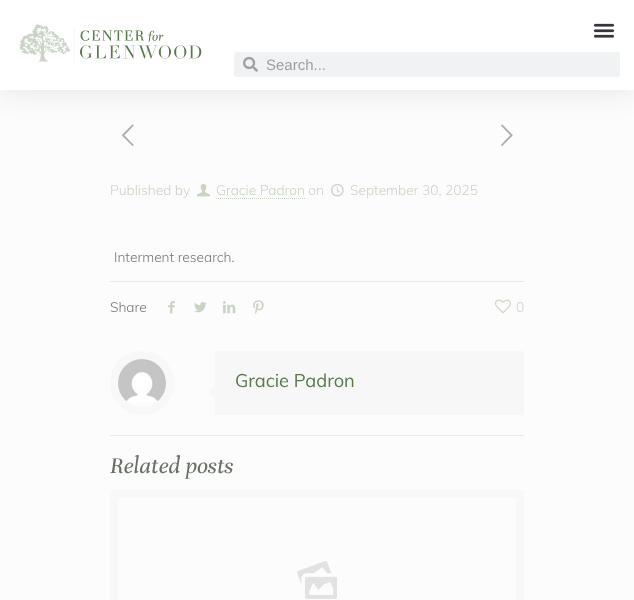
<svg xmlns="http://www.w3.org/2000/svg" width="634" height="600">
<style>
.a{font:15px Liberation Sans;fill:#a0a0a1}
.b{font:300 13.75px Muli;fill:#cad4c5}
.c{font:300 13.75px Muli;fill:#777}
.d{font:18.25px Muli;fill:#59784d}
.e{font:italic 24.5px Unna;fill:#687065}
</style>
<rect width="100%" height="100%" fill="#fcfcfc"/>
<image href="4.png" x="122" y="124" width="12" height="22"/>
<image href="5.png" x="501" y="124" width="12" height="22"/>
<path fill="#0000001a" filter="blur(15px)" d="M0 0h634v90H0z"/>
<path fill="#fff" d="M0 0h634v90H0z"/>
<image href="1.png" x="19" y="24" width="183" height="39"/>
<image href="2.png" x="593" y="23" width="22" height="15"/>
<rect fill="#f1f2f3" x="234" y="52" width="386" height="25" rx="3"/>
<image href="3.png" x="243" y="56" width="15" height="16"/>
<image href="6.png" x="197" y="184" width="13" height="13"/>
<path fill="none" stroke="#cad4c5" stroke-dasharray="1 1" d="M216 198.5h89"/>
<image href="7.png" x="331" y="183" width="13" height="14"/>
<path fill="#e8e8e8" d="M110 281h414v1H110z"/>
<image href="8.png" x="168" y="301" width="7" height="13"/>
<image href="9.png" x="194" y="302" width="13" height="11"/>
<image href="10.png" x="223" y="301" width="13" height="13"/>
<image href="11.png" x="253" y="300" width="11" height="14"/>
<image href="12.png" x="495" y="299" width="16" height="15"/>
<circle fill="none" stroke="#f8f8f8" stroke-width="8" cx="142" cy="383" r="28"/>
<image href="13.png" x="118" y="359" width="48" height="43"/>
<path fill="#f7f7f7" d="M215 351h309v64H215z"/>
<path fill="#f7f7f7" d="M215 386v12l-6-6z"/>
<path fill="#e8e8e8" d="M110 435h414v1H110z"/>
<path fill="none" stroke="#f8f8f8" stroke-width="8" d="M114 494h406v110H114z"/>
<image href="14.png" x="297" y="561" width="40" height="38"/>
<text class="a" x="266" y="70">Search...</text>
<text class="b" x="110" y="195">Published by</text>
<text class="b" x="216" y="195">Gracie Padron on</text>
<text class="b" x="350" y="195">September 30, 2025</text>
<text class="c" x="114" y="262">Interment research.</text>
<text class="c" x="110" y="312">Share</text>
<text class="b" x="516" y="312">0</text>
<text class="d" x="235" y="387">Gracie Padron</text>
<text class="e" x="110" y="473">Related posts</text>
</svg>
